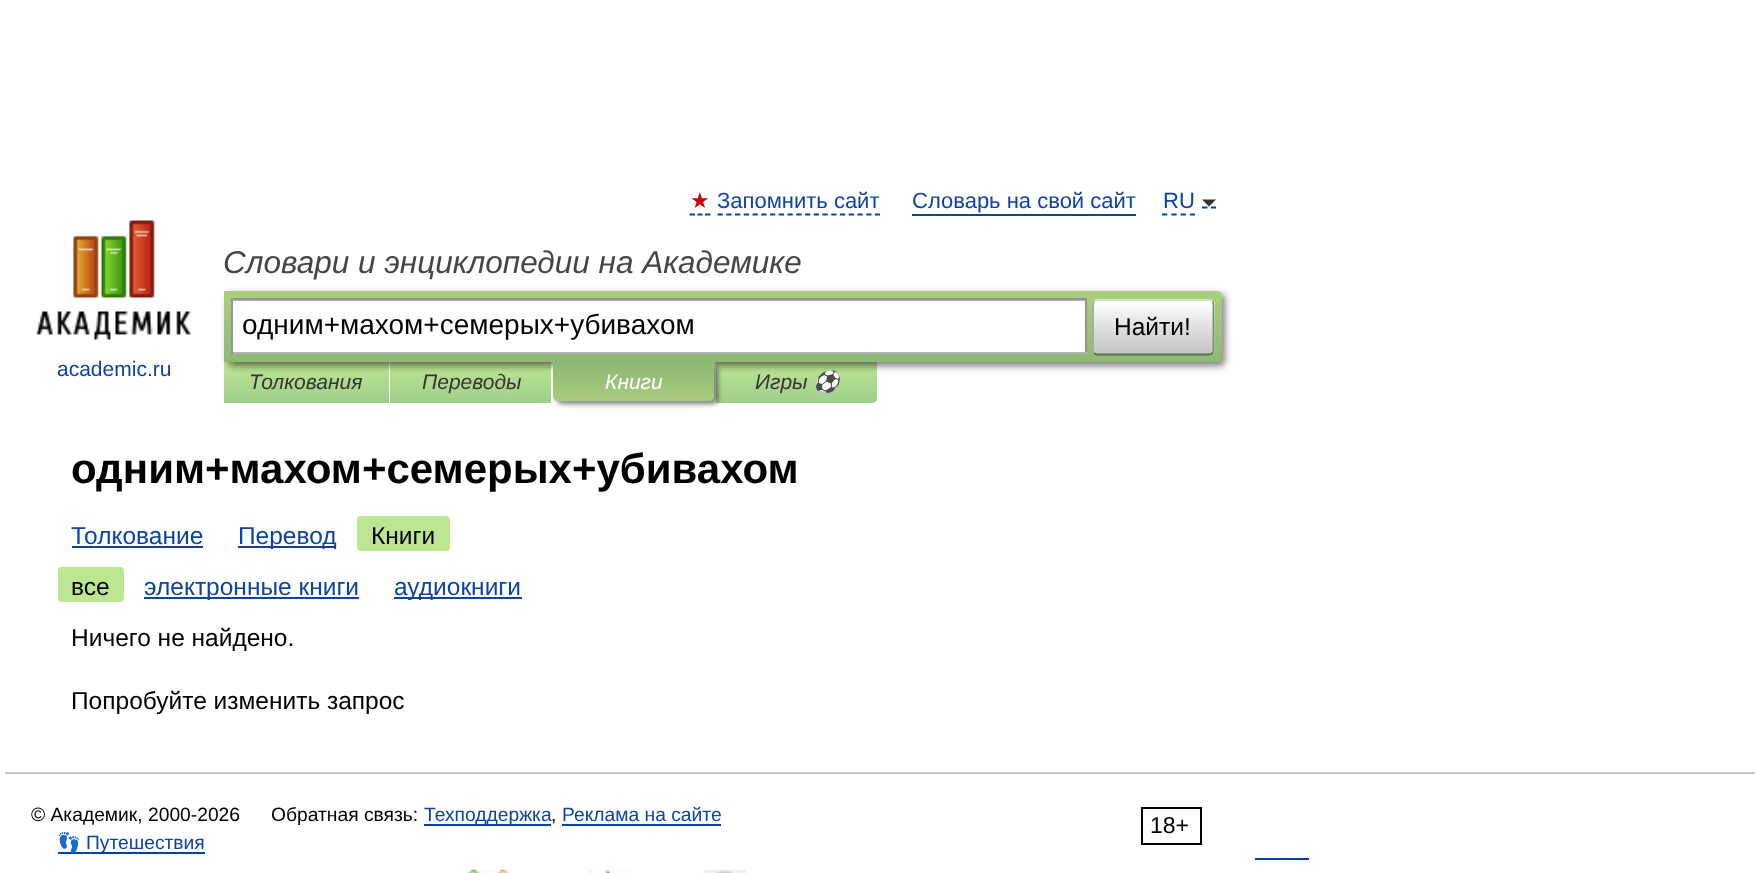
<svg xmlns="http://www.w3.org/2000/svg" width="1758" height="873">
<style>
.a{font:22px DejaVu Sans;fill:#c00}
.b{font:22px Liberation Sans;fill:#0d44a0}
.c{font:italic 31.5px Liberation Sans;fill:#454545}
.d{font:28px Liberation Sans;fill:#000}
.e{font:24.5px Liberation Sans;fill:#000}
.f{font:21px Liberation Sans;fill:#0d44a0}
.g{font:italic 21px Liberation Sans;fill:#353535}
.h{font:italic 21px Liberation Sans;fill:#fff}
.i{font:italic 21px Noto Color Emoji;fill:#353535}
.j{font:bold 42px Liberation Sans;fill:#000}
.k{font:24.5px Liberation Sans;fill:#0d44a0}
.l{font:19.25px Liberation Sans;fill:#000}
.m{font:19.25px Liberation Sans;fill:#0d44a0}
.n{font:23px Liberation Sans;fill:#000}
.o{font:19.25px Noto Color Emoji;fill:#0d44a0}
</style>
<defs>
<linearGradient id="g1" gradientUnits="userSpaceOnUse" x1="306" y1="362" x2="306" y2="403"><stop offset="0" stop-color="#bde693"/><stop offset="1" stop-color="#a0ce8a"/></linearGradient>
<linearGradient id="g2" gradientUnits="userSpaceOnUse" x1="471" y1="362" x2="471" y2="403"><stop offset="0" stop-color="#bde693"/><stop offset="1" stop-color="#a0ce8a"/></linearGradient>
<linearGradient id="g3" gradientUnits="userSpaceOnUse" x1="796" y1="362" x2="796" y2="403"><stop offset="0" stop-color="#bde693"/><stop offset="1" stop-color="#a0ce8a"/></linearGradient>
<linearGradient id="g4" gradientUnits="userSpaceOnUse" x1="723" y1="290" x2="723" y2="362"><stop offset="0" stop-color="#abcf7e"/><stop offset="1" stop-color="#8eb874"/></linearGradient>
<clipPath id="clip1"><rect x="1092" y="299" width="123" height="56" rx="5"/></clipPath>
<linearGradient id="g5" gradientUnits="userSpaceOnUse" x1="1153" y1="249" x2="1153" y2="301"><stop offset="0" stop-color="#fff"/><stop offset="1" stop-color="#c1c1c1"/></linearGradient>
<linearGradient id="g6" gradientUnits="userSpaceOnUse" x1="1153" y1="301" x2="1153" y2="354"><stop offset="0" stop-color="#fff"/><stop offset="1" stop-color="#c1c1c1"/></linearGradient>
<linearGradient id="g7" gradientUnits="userSpaceOnUse" x1="634" y1="362" x2="634" y2="401"><stop offset="0" stop-color="#8fb875"/><stop offset="1" stop-color="#a7cc7d"/></linearGradient>
</defs>
<rect width="100%" height="100%" fill="#fff"/>
<path fill="none" stroke="#04a" stroke-width="1.8" d="M689.5 214.5h5.5m2.5 0h5m2.5 0h5.5"/>
<path fill="none" stroke="#04a" stroke-width="1.8" stroke-dasharray="5.25 3.5" d="M717.5 214.5h162.5"/>
<path fill="#0d44a0" d="M912 214h224v2H912z"/>
<path fill="none" stroke="#04a" stroke-width="1.8" stroke-dasharray="5.25 4.08" d="M1162 214.5h33"/>
<path fill="none" stroke="#04a" stroke-width="1.8" d="M1202 207.5h5.5m3.5 0h5"/>
<path fill="#333" d="M1202 199.5h14l-7 7z"/>
<path fill="url(#g1)" d="M224 362h165v41H224z"/>
<path fill="url(#g2)" d="M390 362h161v41H390z"/>
<path fill="url(#g3)" d="M716 362h161v36c0 3-2 5-5 5h-156z"/>
<rect fill="#00000080" filter="blur(3.5px)" x="228" y="294" width="997" height="72" rx="5"/>
<path fill="url(#g4)" d="M224 291h993c3 0 5 2 5 5v61c0 3-2 5-5 5h-993z"/>
<path fill="#fff" d="M233 301h852v51H233z"/>
<path fill="#b3b3b3" d="M233 300h852v1H233z"/>
<path fill="#949494" d="M231 298h856v2H231z"/>
<path fill="#949494" d="M1085 298h2v56H1085z"/>
<path fill="#b4b4b4" d="M231 352h856v2H231z"/>
<path fill="#949494" d="M231 298h2v56H231z"/>
<g clip-path="url(#clip1)">
<path fill="url(#g5)" d="M1092 299h123v2H1092z"/>
<path fill="url(#g6)" d="M1092 301h123v53H1092z"/>
</g>
<path fill="none" stroke="#d1e4bc" stroke-width="1.8" d="M1094 301.5c1-1 2-1.5 3-1.5h112c1.5 0 2.5 .5 3.5 1.5"/>
<path fill="none" stroke="#7a8e69" stroke-width="1.8" d="M1212.5 301.5c.5 .5 1 2 1 3v45.5c0 1-.5 2.5-1 3"/>
<path fill="none" stroke="#5d7250" stroke-width="1.8" d="M1212.5 353c-1 1-2 1.5-3.5 1.5h-112c-1 0-2-.5-3-1.5"/>
<path fill="none" stroke="#9aae89" stroke-width="1.8" d="M1094 353c-.5-.5-1-2-1-3v-45.5c0-1 .5-2.5 1-3"/>
<image href="1.png" x="36" y="220" width="155" height="120"/>
<rect fill="#00000080" filter="blur(2.5px)" x="557" y="366" width="161" height="38" rx="5"/>
<path fill="url(#g7)" d="M553 362h161v34c0 3-2 5-5 5h-151c-3 0-5-2-5-5z"/>
<path fill="#0d44a0" d="M72 546h131v2H72z"/>
<path fill="#0d44a0" d="M238 546h98v2H238z"/>
<rect fill="#bde693" x="357" y="516" width="93" height="35" rx="4"/>
<rect fill="#bde693" x="58" y="567" width="66" height="35" rx="4"/>
<path fill="#0d44a0" d="M144 597h215v2H144z"/>
<path fill="#0d44a0" d="M394 597h128v2H394z"/>
<path fill="#c7c7c7" d="M5 772h1750v2H5z"/>
<path fill="#04a" d="M424 824h127v2H424z"/>
<path fill="#04a" d="M562 824h159v2H562z"/>
<path fill="none" stroke="#000" stroke-width="2" d="M1142 808h59v36H1142z"/>
<path fill="#04a" d="M58 852h147v2H58z"/>
<path fill="#04a" d="M1255 858h54v2H1255z"/>
<image href="2.png" x="467" y="869" width="43" height="4"/>
<image href="3.png" x="588" y="869" width="42" height="4"/>
<image href="4.png" x="703" y="869" width="43" height="4"/>
<text class="a" x="690" y="208">★</text>
<text class="b" x="717" y="208">Запомнить сайт</text>
<text class="b" x="912" y="208">Словарь на свой сайт</text>
<text class="b" x="1163" y="208">RU</text>
<text class="c" x="223" y="273">Словари и энциклопедии на Академике</text>
<text class="d" x="242" y="334">одним+махом+семерых+убивахом</text>
<text class="e" x="1114" y="335">Найти!</text>
<text class="f" x="57" y="376">academic.ru</text>
<text class="g" x="249" y="389">Толкования</text>
<text class="g" x="422" y="389">Переводы</text>
<text class="h" x="605" y="389">Книги</text>
<text class="g" x="755" y="389">Игры</text>
<text class="i" x="813" y="389">⚽</text>
<text class="j" x="71" y="483">одним+махом+семерых+убивахом</text>
<text class="k" x="71" y="544">Толкование</text>
<text class="k" x="238" y="544">Перевод</text>
<text class="e" x="371" y="544">Книги</text>
<text class="e" x="71" y="595">все</text>
<text class="k" x="144" y="595">электронные книги</text>
<text class="k" x="394" y="595">аудиокниги</text>
<text class="e" x="71" y="646">Ничего не найдено.</text>
<text class="e" x="71" y="709">Попробуйте изменить запрос</text>
<text class="l" x="31" y="821">© Академик, 2000-2026</text>
<text class="l" x="271" y="821">Обратная связь:</text>
<text class="m" x="424" y="821">Техподдержка</text>
<text class="l" x="551" y="821">,</text>
<text class="m" x="562" y="821">Реклама на сайте</text>
<text class="n" x="1150" y="833">18+</text>
<text class="o" x="57" y="849">👣</text>
<text class="m" x="86" y="849">Путешествия</text>
</svg>
